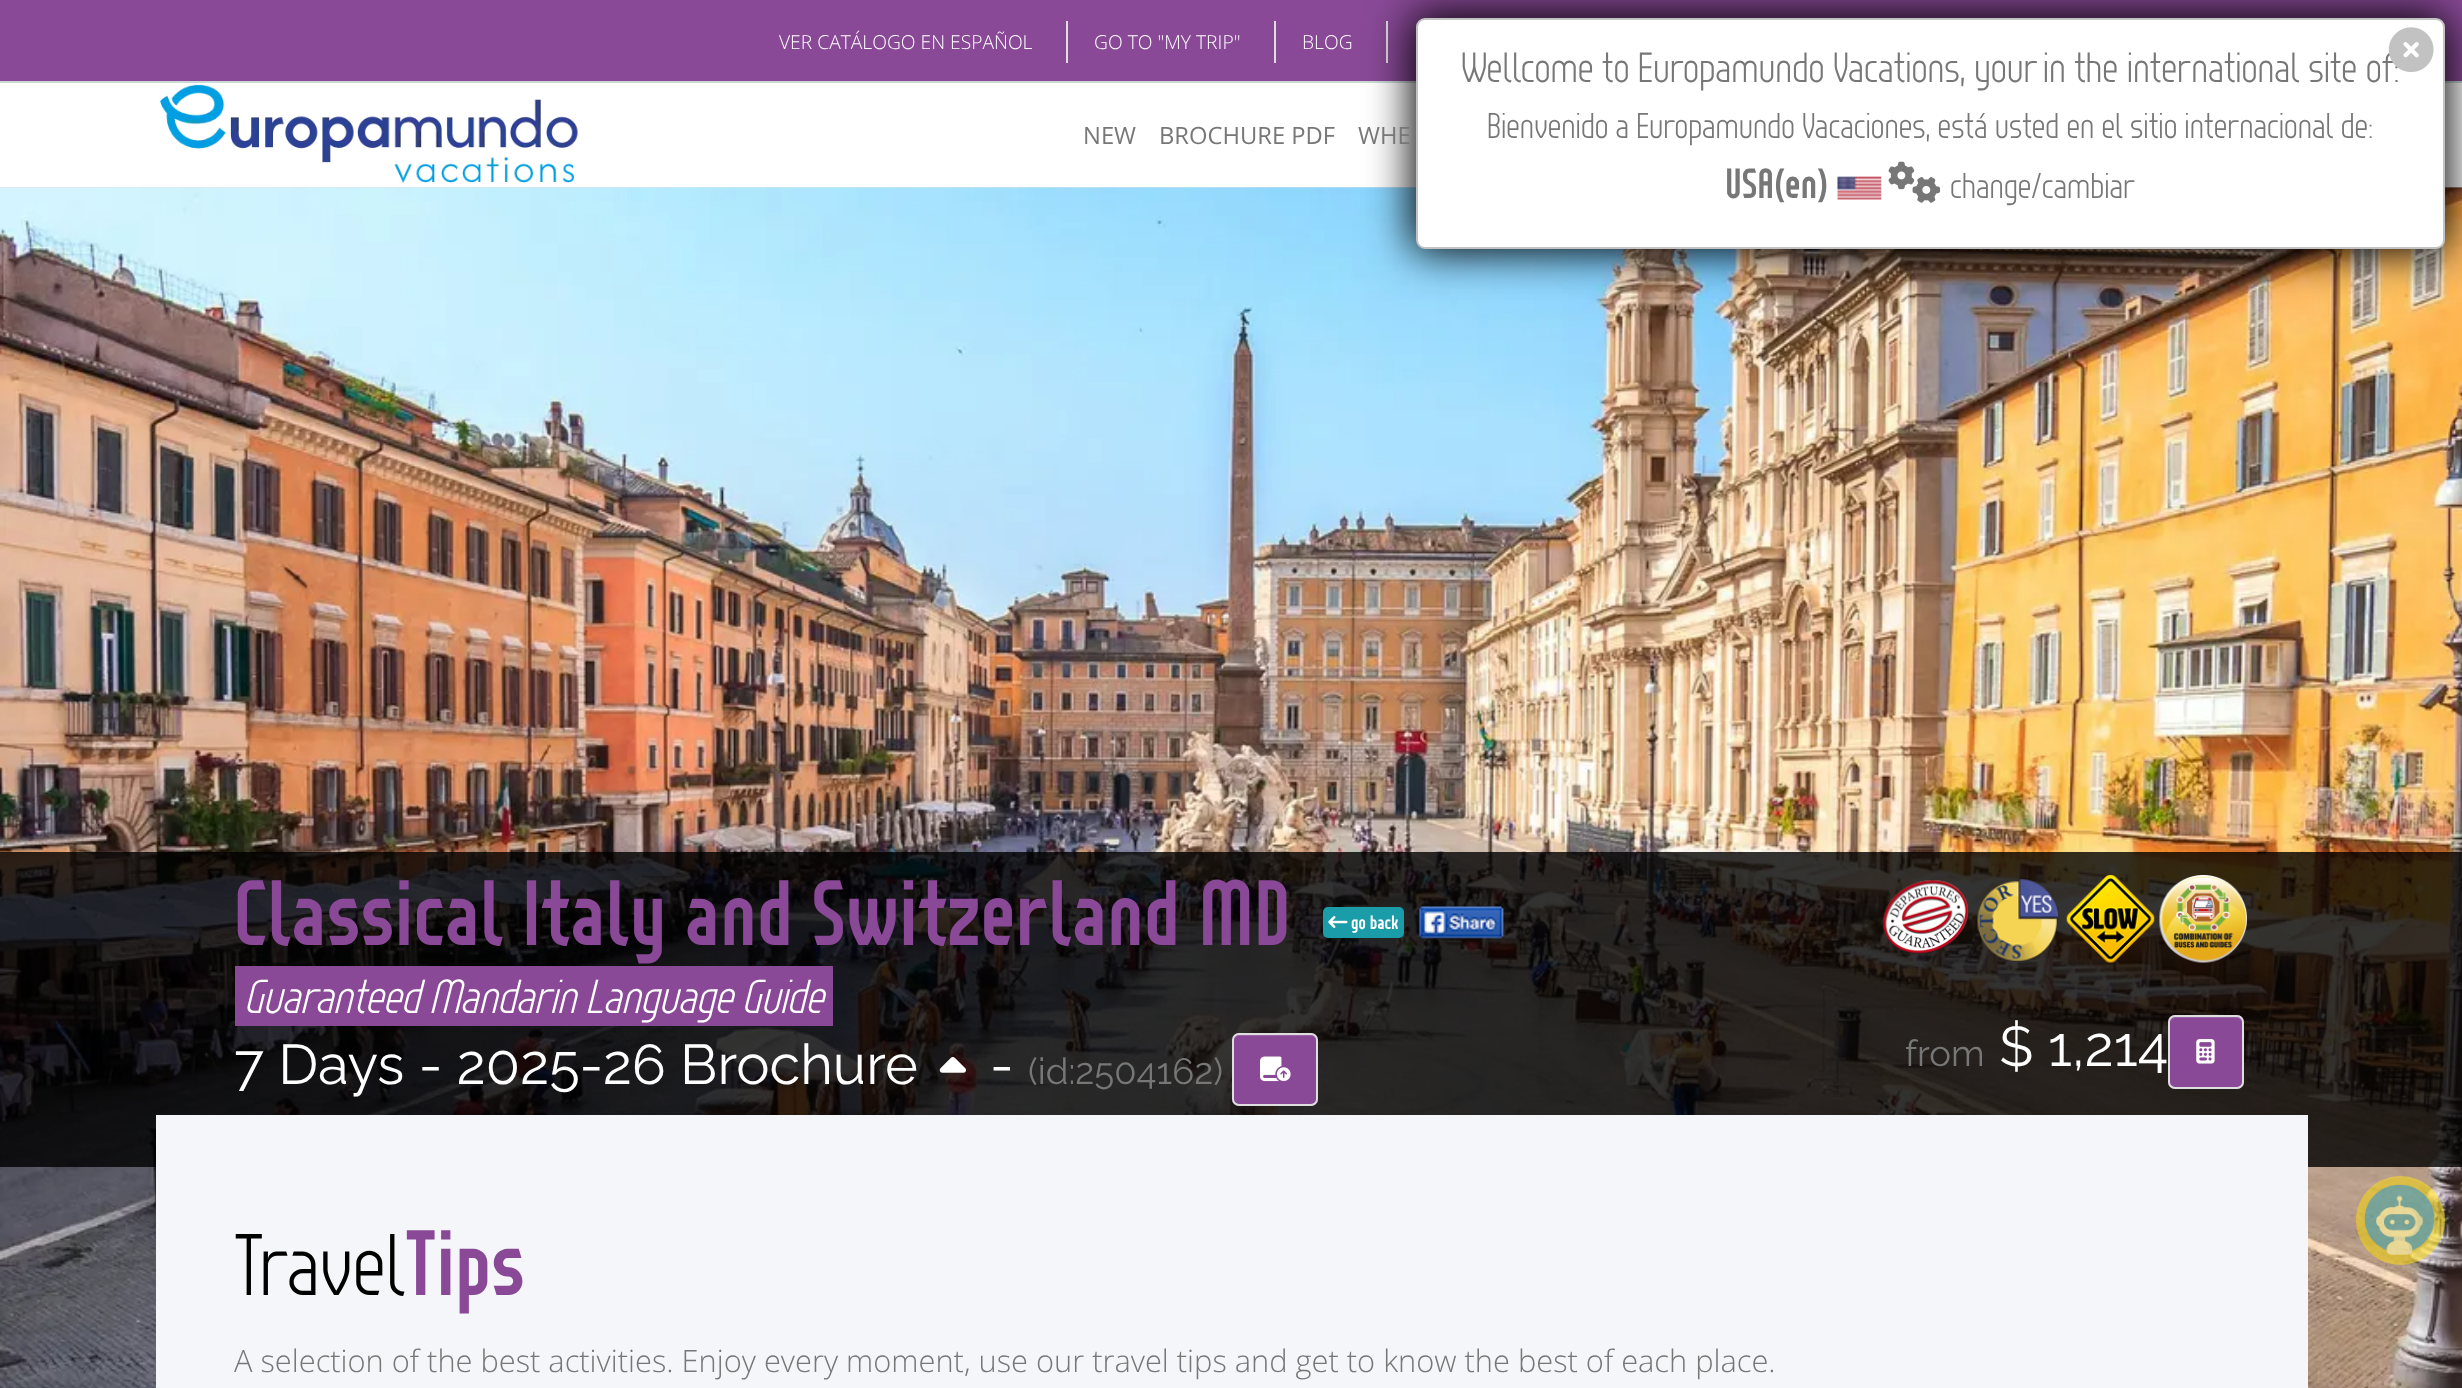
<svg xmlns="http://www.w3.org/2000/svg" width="2462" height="1388">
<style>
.a{font:300 19.25px Open Sans;fill:#fff}
.b{font:23.75px Open Sans;fill:#777}
.c{font:bold 92.4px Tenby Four;fill:#894997}
.d{font:bold 19.25px Tenby Four;fill:#fff}
.e{font:italic 300 47.6px Tenby Four;fill:#fff}
.f{font:100 56px Raleway;fill:#fff}
.g{font:100 36.5px Raleway;fill:#777}
.h{font:300 87px Tenby Four;fill:#000}
.i{font:300 30.8px Open Sans;fill:#777}
.j{font:300 42px Tenby Four;fill:#777}
.k{font:300 35.7px Tenby Four;fill:#777}
.l{font:bold 42px Tenby Four;fill:#777}
</style>
<rect width="100%" height="100%" fill="#fff"/>
<path fill="#894997" d="M0 0h2462v81H0z"/>
<path fill="#cbd8d8" d="M0 81h2462v2H0z"/>
<path fill="#dedede" d="M1066 21h2v42H1066z"/>
<path fill="#dedede" d="M1274 21h2v42H1274z"/>
<path fill="#dedede" d="M1386 21h2v42H1386z"/>
<image href="1.png" x="160" y="84" width="418" height="99"/>
<path fill="#e2e2e2" d="M0 187h2462v1H0z"/>
<image href="2.png" x="0" y="187" width="2462" height="1201"/>
<path fill="#000000cc" d="M0 852h2462v315H0z"/>
<rect fill="#1a9ca9" x="1323" y="907" width="81" height="31" rx="5"/>
<image href="3.png" x="1328" y="916" width="20" height="12"/>
<image href="4.png" x="1418" y="906" width="86" height="33"/>
<path fill="#894997" d="M235 966h598v60H235z"/>
<image href="5.png" x="939" y="1057" width="27" height="16"/>
<rect fill="#894997" x="1232" y="1033" width="86" height="73" rx="7"/>
<path fill="#9b64a7" d="M1239 1036h72c3 0 5 2 5 5c0-10-9-7-17-7h-48c-8 0-17-3-17 7c0-3 2-5 5-5z"/>
<rect fill="none" stroke="#dedede" stroke-width="2" x="1233" y="1034" width="84" height="71" rx="6"/>
<image href="6.png" x="1260" y="1056" width="31" height="26"/>
<image href="7.png" x="1883" y="880" width="86" height="74"/>
<image href="8.png" x="1977" y="879" width="82" height="83"/>
<image href="9.png" x="2066" y="875" width="89" height="88"/>
<image href="10.png" x="2159" y="875" width="88" height="88"/>
<rect fill="#894997" x="2168" y="1015" width="76" height="74" rx="7"/>
<path fill="#9b64a7" d="M2175 1018h61c3 0 6 3 6 6c0-10-7-7-15-7h-42c-8 0-15-3-15 7c0-3 2-6 5-6z"/>
<rect fill="none" stroke="#dedede" stroke-width="2" x="2169" y="1016" width="74" height="72" rx="6"/>
<image href="11.png" x="2196" y="1039" width="19" height="25"/>
<path fill="#f5f6fa" d="M156 1115h2152v273H156z"/>
<rect fill="#000" filter="blur(22px)" x="1412" y="14" width="1036" height="238" rx="12"/>
<rect fill="#fff" stroke="#c2c2c2" stroke-width="2" x="1417" y="19" width="1027" height="229" rx="8"/>
<image href="13.png" x="1837" y="176" width="45" height="24"/>
<image href="14.png" x="1888" y="161" width="53" height="42"/>
<circle fill="#ffdd0080" cx="2400.5" cy="1220.5" r="44.5"/>
<path fill="#ffffff12" d="M2400 1178c25 0 45 20 45 43c1-44-57-62-81-25c-5 7-8 16-8 25c0-23 19-43 44-43z"/>
<image href="15.png" x="2364" y="1184" width="71" height="71"/>
<text class="a" x="779" y="49">VER CATÁLOGO EN ESPAÑOL</text>
<text class="a" x="1094" y="49">GO TO "MY TRIP"</text>
<text class="a" x="1302" y="49">BLOG</text>
<text class="b" x="1083" y="144">NEW</text>
<text class="b" x="1159" y="144">BROCHURE PDF</text>
<text class="b" x="1358" y="144">WHE</text>
<text class="c" x="234" y="945">Classical Italy and Switzerland MD</text>
<text class="d" x="1351" y="929">go back</text>
<text class="e" x="244" y="1013">Guaranteed Mandarin Language Guide</text>
<text class="f" x="234" y="1084">7 Days - 2025-26 Brochure</text>
<text class="f" x="990" y="1084">-</text>
<text class="g" x="1028" y="1084">(id:2504162)</text>
<text class="g" x="1905" y="1066">from</text>
<text class="f" x="1999" y="1066">$ 1,214</text>
<text class="h" x="234" y="1295">Travel</text>
<text class="c" x="405" y="1295">Tips</text>
<text class="i" x="234" y="1372">A selection of the best activities. Enjoy every moment, use our travel tips and get to know the best of each place.</text>
<text class="j" x="1461" y="82">Wellcome to Europamundo Vacations, your in the international site of:</text>
<image href="12.png" x="2388" y="27" width="46" height="46"/>
<text class="k" x="1487" y="138">Bienvenido a Europamundo Vacaciones, está usted en el sitio internacional de:</text>
<text class="l" x="1725" y="198">USA(en)</text>
<text class="k" x="1950" y="198">change/cambiar</text>
</svg>
